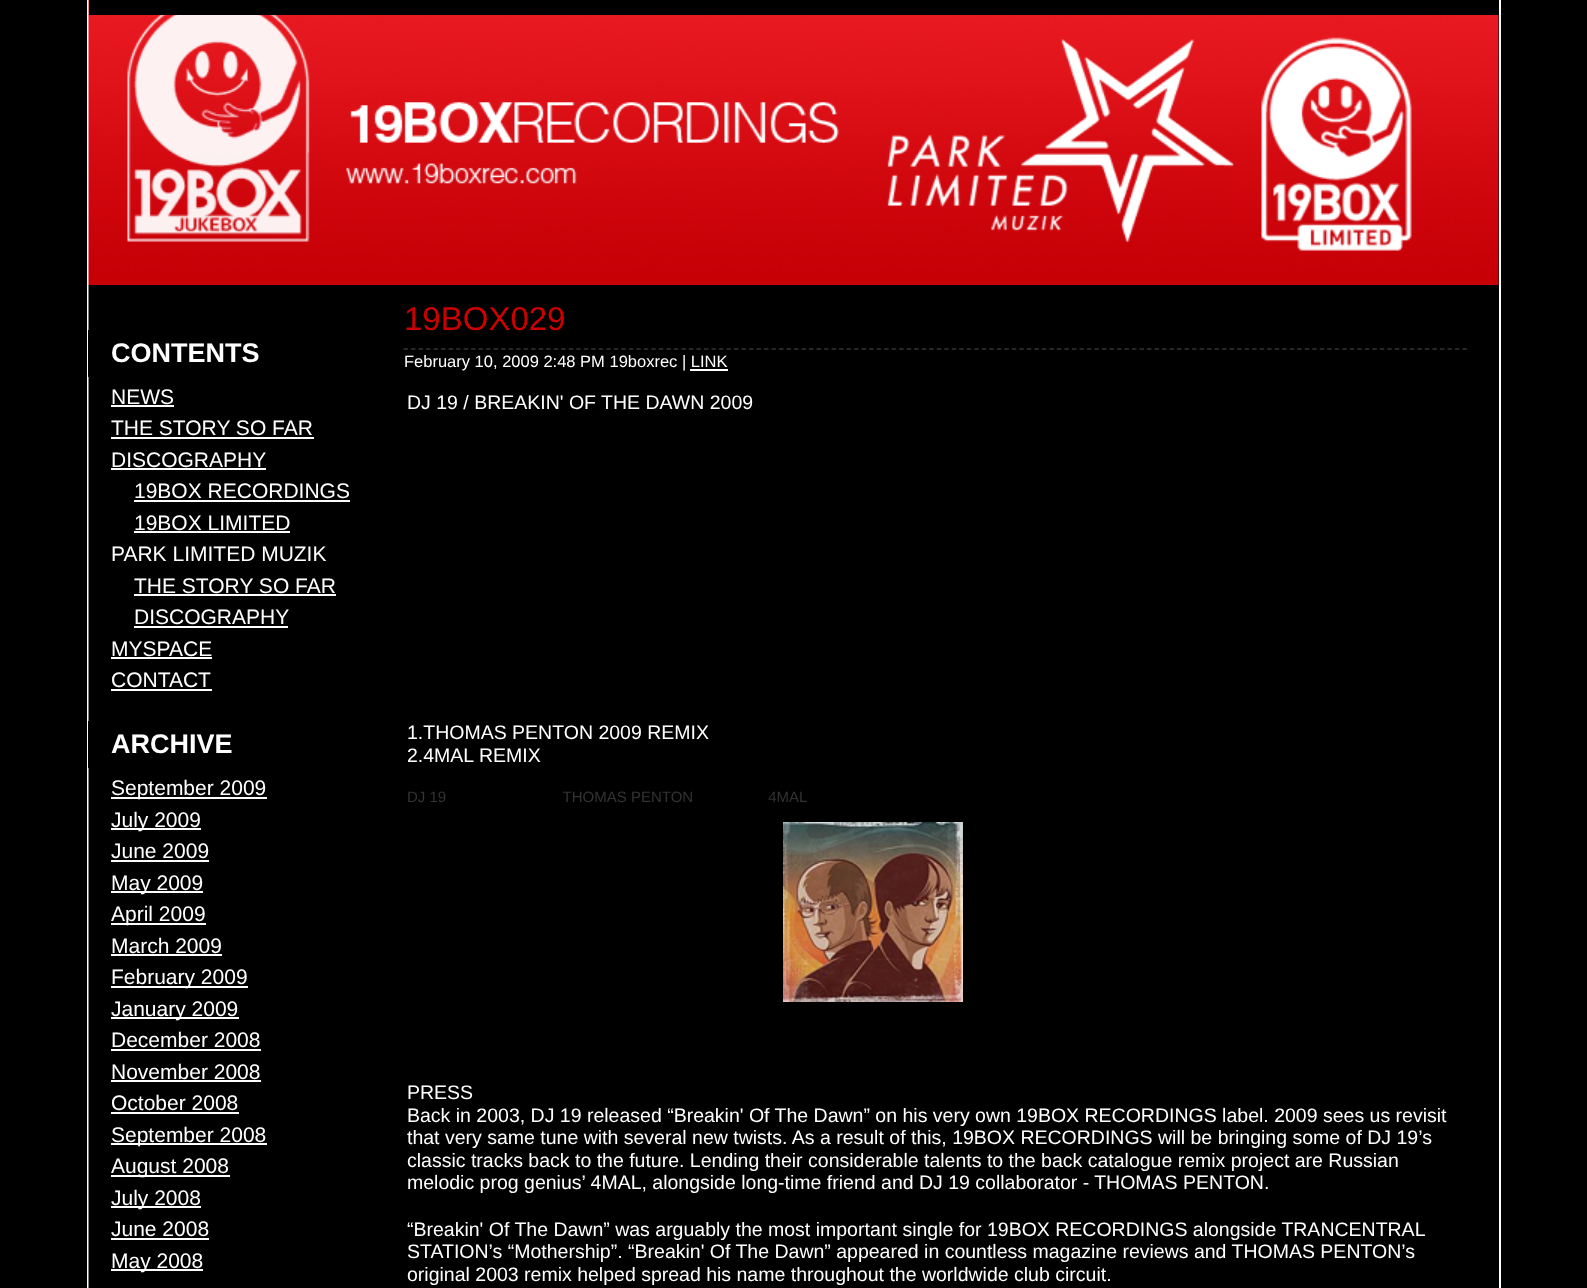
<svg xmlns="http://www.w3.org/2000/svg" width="1587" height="1288">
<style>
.a{font:bold 27px Liberation Sans;fill:#fff}
.b{font:21px Liberation Sans;fill:#fff}
.c{font:33px Liberation Sans;fill:#c00}
.d{font:16.5px Liberation Sans;fill:#fff}
.e{font:19.5px Liberation Sans;fill:#fff}
.f{font:15px Liberation Sans;fill:#333}
</style>
<rect width="100%" height="100%" fill="#000"/>
<path fill="#fff" d="M1499 0h2v1288H1499z"/>
<path fill="#fff" d="M87 0h2v1288H87z"/>
<image href="1.png" x="88" y="0" width="1411" height="285"/>
<path fill="#000" d="M89 0h1410v15H89z"/>
<path fill="#808080" d="M88 285h1v1003H88z"/>
<path fill="#000" d="M88 330h1v47H88z"/>
<path fill="#fff" d="M111 405h63v2H111z"/>
<path fill="#fff" d="M111 437h203v2H111z"/>
<path fill="#fff" d="M111 468h155v2H111z"/>
<path fill="#fff" d="M134 500h216v2H134z"/>
<path fill="#fff" d="M134 531h156v2H134z"/>
<path fill="#fff" d="M134 594h202v2H134z"/>
<path fill="#fff" d="M134 626h154v2H134z"/>
<path fill="#fff" d="M111 657h101v2H111z"/>
<path fill="#fff" d="M111 689h101v2H111z"/>
<path fill="#000" d="M88 721h1v47H88z"/>
<path fill="#fff" d="M111 797h156v2H111z"/>
<path fill="#fff" d="M111 828h90v2H111z"/>
<path fill="#fff" d="M111 860h98v2H111z"/>
<path fill="#fff" d="M111 891h92v2H111z"/>
<path fill="#fff" d="M111 923h95v2H111z"/>
<path fill="#fff" d="M111 954h111v2H111z"/>
<path fill="#fff" d="M111 986h137v2H111z"/>
<path fill="#fff" d="M111 1017h128v2H111z"/>
<path fill="#fff" d="M111 1049h150v2H111z"/>
<path fill="#fff" d="M111 1080h150v2H111z"/>
<path fill="#fff" d="M111 1112h128v2H111z"/>
<path fill="#fff" d="M111 1143h156v2H111z"/>
<path fill="#fff" d="M111 1175h119v2H111z"/>
<path fill="#fff" d="M111 1206h90v2H111z"/>
<path fill="#fff" d="M111 1238h98v2H111z"/>
<path fill="#fff" d="M111 1269h92v2H111z"/>
<path fill="none" stroke="#333" stroke-width="1.5" stroke-dasharray="4.5 3.01" d="M403.5 349h1065"/>
<path fill="#fff" d="M690 369h38v2H690z"/>
<image href="2.png" x="783" y="822" width="180" height="180"/>
<text class="a" x="111" y="362">CONTENTS</text>
<text class="b" x="111" y="404">NEWS</text>
<text class="b" x="111" y="435">THE STORY SO FAR</text>
<text class="b" x="111" y="467">DISCOGRAPHY</text>
<text class="b" x="134" y="498">19BOX RECORDINGS</text>
<text class="b" x="134" y="530">19BOX LIMITED</text>
<text class="b" x="111" y="561">PARK LIMITED MUZIK</text>
<text class="b" x="134" y="593">THE STORY SO FAR</text>
<text class="b" x="134" y="624">DISCOGRAPHY</text>
<text class="b" x="111" y="656">MYSPACE</text>
<text class="b" x="111" y="687">CONTACT</text>
<text class="a" x="111" y="753">ARCHIVE</text>
<text class="b" x="111" y="795">September 2009</text>
<text class="b" x="111" y="827">July 2009</text>
<text class="b" x="111" y="858">June 2009</text>
<text class="b" x="111" y="890">May 2009</text>
<text class="b" x="111" y="921">April 2009</text>
<text class="b" x="111" y="953">March 2009</text>
<text class="b" x="111" y="984">February 2009</text>
<text class="b" x="111" y="1016">January 2009</text>
<text class="b" x="111" y="1047">December 2008</text>
<text class="b" x="111" y="1079">November 2008</text>
<text class="b" x="111" y="1110">October 2008</text>
<text class="b" x="111" y="1142">September 2008</text>
<text class="b" x="111" y="1173">August 2008</text>
<text class="b" x="111" y="1205">July 2008</text>
<text class="b" x="111" y="1236">June 2008</text>
<text class="b" x="111" y="1268">May 2008</text>
<text class="c" x="404" y="330">19BOX029</text>
<text class="d" x="404" y="367">February 10, 2009 2:48 PM 19boxrec | LINK</text>
<text class="e" x="407" y="409">DJ 19 / BREAKIN' OF THE DAWN 2009</text>
<text class="e" x="407" y="739">1.THOMAS PENTON 2009 REMIX</text>
<text class="e" x="407" y="762">2.4MAL REMIX</text>
<text class="f" xml:space="preserve" x="407" y="802">DJ 19                            THOMAS PENTON                  4MAL</text>
<text class="e" x="407" y="1099">PRESS</text>
<text class="e" x="407" y="1122">Back in 2003, DJ 19 released “Breakin' Of The Dawn” on his very own 19BOX RECORDINGS label. 2009 sees us revisit</text>
<text class="e" x="407" y="1144">that very same tune with several new twists. As a result of this, 19BOX RECORDINGS will be bringing some of DJ 19’s</text>
<text class="e" x="407" y="1167">classic tracks back to the future. Lending their considerable talents to the back catalogue remix project are Russian</text>
<text class="e" x="407" y="1189">melodic prog genius’ 4MAL, alongside long-time friend and DJ 19 collaborator - THOMAS PENTON.</text>
<text class="e" x="407" y="1236">“Breakin' Of The Dawn” was arguably the most important single for 19BOX RECORDINGS alongside TRANCENTRAL</text>
<text class="e" x="407" y="1258">STATION’s “Mothership”. “Breakin' Of The Dawn” appeared in countless magazine reviews and THOMAS PENTON’s</text>
<text class="e" x="407" y="1281">original 2003 remix helped spread his name throughout the worldwide club circuit.</text>
</svg>
